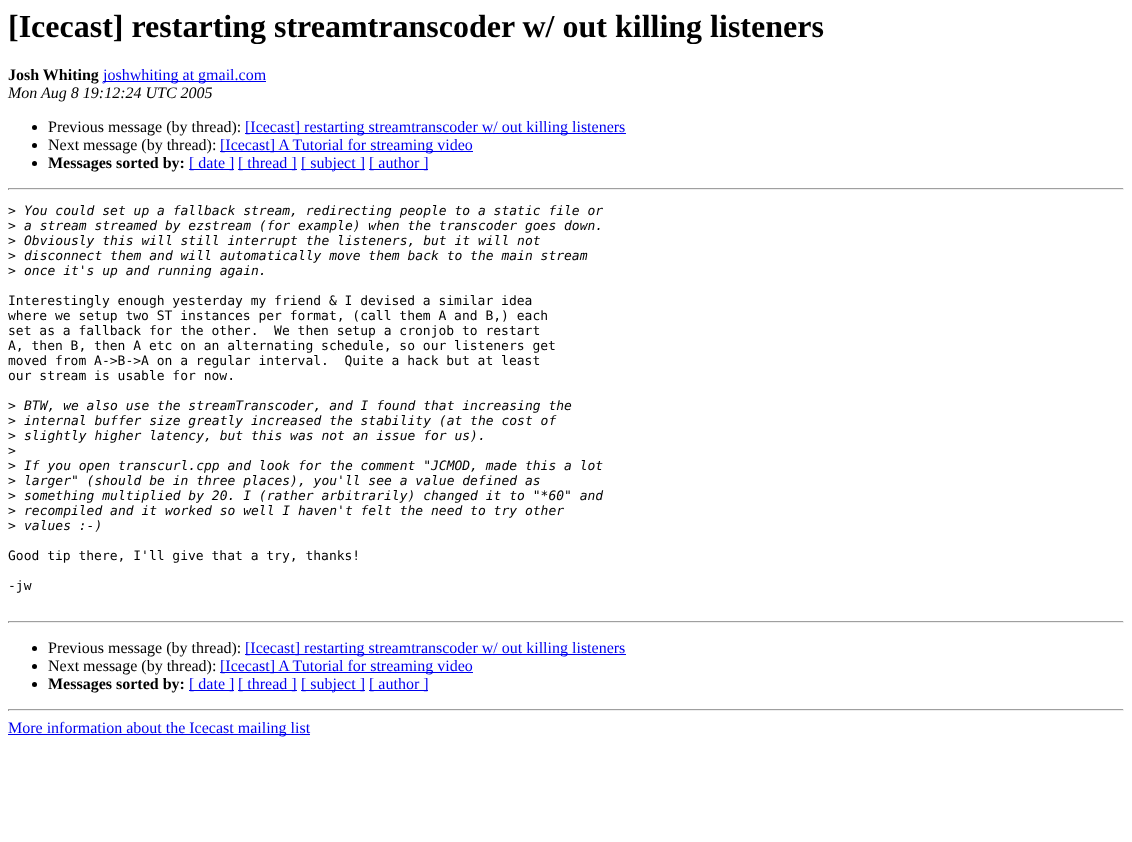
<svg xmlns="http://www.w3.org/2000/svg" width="1132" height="842">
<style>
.a{font:bold 32px Liberation Serif;fill:#000}
.b{font:bold 16px Liberation Serif;fill:#000}
.c{font:16px Liberation Serif;fill:#00e}
.d{font:italic 16px Liberation Serif;fill:#000}
.e{font:16px Liberation Serif;fill:#000}
.f{font:13px DejaVu Sans Mono;fill:#000}
.g{font:italic 13px DejaVu Sans Mono;fill:#000}
</style>
<rect width="100%" height="100%" fill="#fff"/>
<path fill="#00e" d="M103 81h163v1H103z"/>
<circle fill="#000" cx="34.5" cy="127.5" r="2.5"/>
<path fill="#00e" d="M245 133h381v1H245z"/>
<circle fill="#000" cx="34.5" cy="145.5" r="2.5"/>
<path fill="#00e" d="M220 151h253v1H220z"/>
<circle fill="#000" cx="34.5" cy="163.5" r="2.5"/>
<path fill="#00e" d="M189 169h45v1H189z"/>
<path fill="#00e" d="M238 169h59v1H238z"/>
<path fill="#00e" d="M301 169h64v1H301z"/>
<path fill="#00e" d="M369 169h59v1H369z"/>
<path fill="#9f9f9f" d="M8 188h1116v1H8z"/>
<path fill="#eee" d="M1123 188h1v2H1123z"/>
<path fill="#eee" d="M8 189h1116v1H8z"/>
<path fill="#9f9f9f" d="M8 188h1v2H8z"/>
<path fill="#9f9f9f" d="M8 621h1116v1H8z"/>
<path fill="#eee" d="M1123 621h1v2H1123z"/>
<path fill="#eee" d="M8 622h1116v1H8z"/>
<path fill="#9f9f9f" d="M8 621h1v2H8z"/>
<circle fill="#000" cx="34.5" cy="648.5" r="2.5"/>
<path fill="#00e" d="M245 654h381v1H245z"/>
<circle fill="#000" cx="34.5" cy="666.5" r="2.5"/>
<path fill="#00e" d="M220 672h253v1H220z"/>
<circle fill="#000" cx="34.5" cy="684.5" r="2.5"/>
<path fill="#00e" d="M189 690h45v1H189z"/>
<path fill="#00e" d="M238 690h59v1H238z"/>
<path fill="#00e" d="M301 690h64v1H301z"/>
<path fill="#00e" d="M369 690h59v1H369z"/>
<path fill="#9f9f9f" d="M8 709h1116v1H8z"/>
<path fill="#eee" d="M1123 709h1v2H1123z"/>
<path fill="#eee" d="M8 710h1116v1H8z"/>
<path fill="#9f9f9f" d="M8 709h1v2H8z"/>
<path fill="#00e" d="M8 734h302v1H8z"/>
<text class="a" x="8" y="37">[Icecast] restarting streamtranscoder w/ out killing listeners</text>
<text class="b" x="8" y="80">Josh Whiting</text>
<text class="c" x="103" y="80">joshwhiting at gmail.com</text>
<text class="d" x="8" y="98">Mon Aug 8 19:12:24 UTC 2005</text>
<text class="e" x="48" y="132">Previous message (by thread):</text>
<text class="c" x="245" y="132">[Icecast] restarting streamtranscoder w/ out killing listeners</text>
<text class="e" x="48" y="150">Next message (by thread):</text>
<text class="c" x="220" y="150">[Icecast] A Tutorial for streaming video</text>
<text class="b" x="48" y="168">Messages sorted by:</text>
<text class="c" x="189" y="168">[ date ]</text>
<text class="c" x="238" y="168">[ thread ]</text>
<text class="c" x="301" y="168">[ subject ]</text>
<text class="c" x="369" y="168">[ author ]</text>
<text class="f" x="8" y="215">&gt;</text>
<text class="g" x="24" y="215">You could set up a fallback stream, redirecting people to a static file or</text>
<text class="f" x="8" y="230">&gt;</text>
<text class="g" x="24" y="230">a stream streamed by ezstream (for example) when the transcoder goes down.</text>
<text class="f" x="8" y="245">&gt;</text>
<text class="g" x="24" y="245">Obviously this will still interrupt the listeners, but it will not</text>
<text class="f" x="8" y="260">&gt;</text>
<text class="g" x="24" y="260">disconnect them and will automatically move them back to the main stream</text>
<text class="f" x="8" y="275">&gt;</text>
<text class="g" x="24" y="275">once it's up and running again.</text>
<text class="f" x="8" y="305">Interestingly enough yesterday my friend &amp; I devised a similar idea</text>
<text class="f" x="8" y="320">where we setup two ST instances per format, (call them A and B,) each</text>
<text class="f" xml:space="preserve" x="8" y="335">set as a fallback for the other.  We then setup a cronjob to restart</text>
<text class="f" x="8" y="350">A, then B, then A etc on an alternating schedule, so our listeners get</text>
<text class="f" xml:space="preserve" x="8" y="365">moved from A-&gt;B-&gt;A on a regular interval.  Quite a hack but at least</text>
<text class="f" x="8" y="380">our stream is usable for now.</text>
<text class="f" x="8" y="410">&gt;</text>
<text class="g" x="24" y="410">BTW, we also use the streamTranscoder, and I found that increasing the</text>
<text class="f" x="8" y="425">&gt;</text>
<text class="g" x="24" y="425">internal buffer size greatly increased the stability (at the cost of</text>
<text class="f" x="8" y="440">&gt;</text>
<text class="g" x="24" y="440">slightly higher latency, but this was not an issue for us).</text>
<text class="f" x="8" y="455">&gt;</text>
<text class="f" x="8" y="470">&gt;</text>
<text class="g" x="24" y="470">If you open transcurl.cpp and look for the comment "JCMOD, made this a lot</text>
<text class="f" x="8" y="485">&gt;</text>
<text class="g" x="24" y="485">larger" (should be in three places), you'll see a value defined as</text>
<text class="f" x="8" y="500">&gt;</text>
<text class="g" x="24" y="500">something multiplied by 20. I (rather arbitrarily) changed it to "*60" and</text>
<text class="f" x="8" y="515">&gt;</text>
<text class="g" x="24" y="515">recompiled and it worked so well I haven't felt the need to try other</text>
<text class="f" x="8" y="530">&gt;</text>
<text class="g" x="24" y="530">values :-)</text>
<text class="f" x="8" y="560">Good tip there, I'll give that a try, thanks!</text>
<text class="f" x="8" y="590">-jw</text>
<text class="e" x="48" y="653">Previous message (by thread):</text>
<text class="c" x="245" y="653">[Icecast] restarting streamtranscoder w/ out killing listeners</text>
<text class="e" x="48" y="671">Next message (by thread):</text>
<text class="c" x="220" y="671">[Icecast] A Tutorial for streaming video</text>
<text class="b" x="48" y="689">Messages sorted by:</text>
<text class="c" x="189" y="689">[ date ]</text>
<text class="c" x="238" y="689">[ thread ]</text>
<text class="c" x="301" y="689">[ subject ]</text>
<text class="c" x="369" y="689">[ author ]</text>
<text class="c" x="8" y="733">More information about the Icecast mailing list</text>
</svg>
